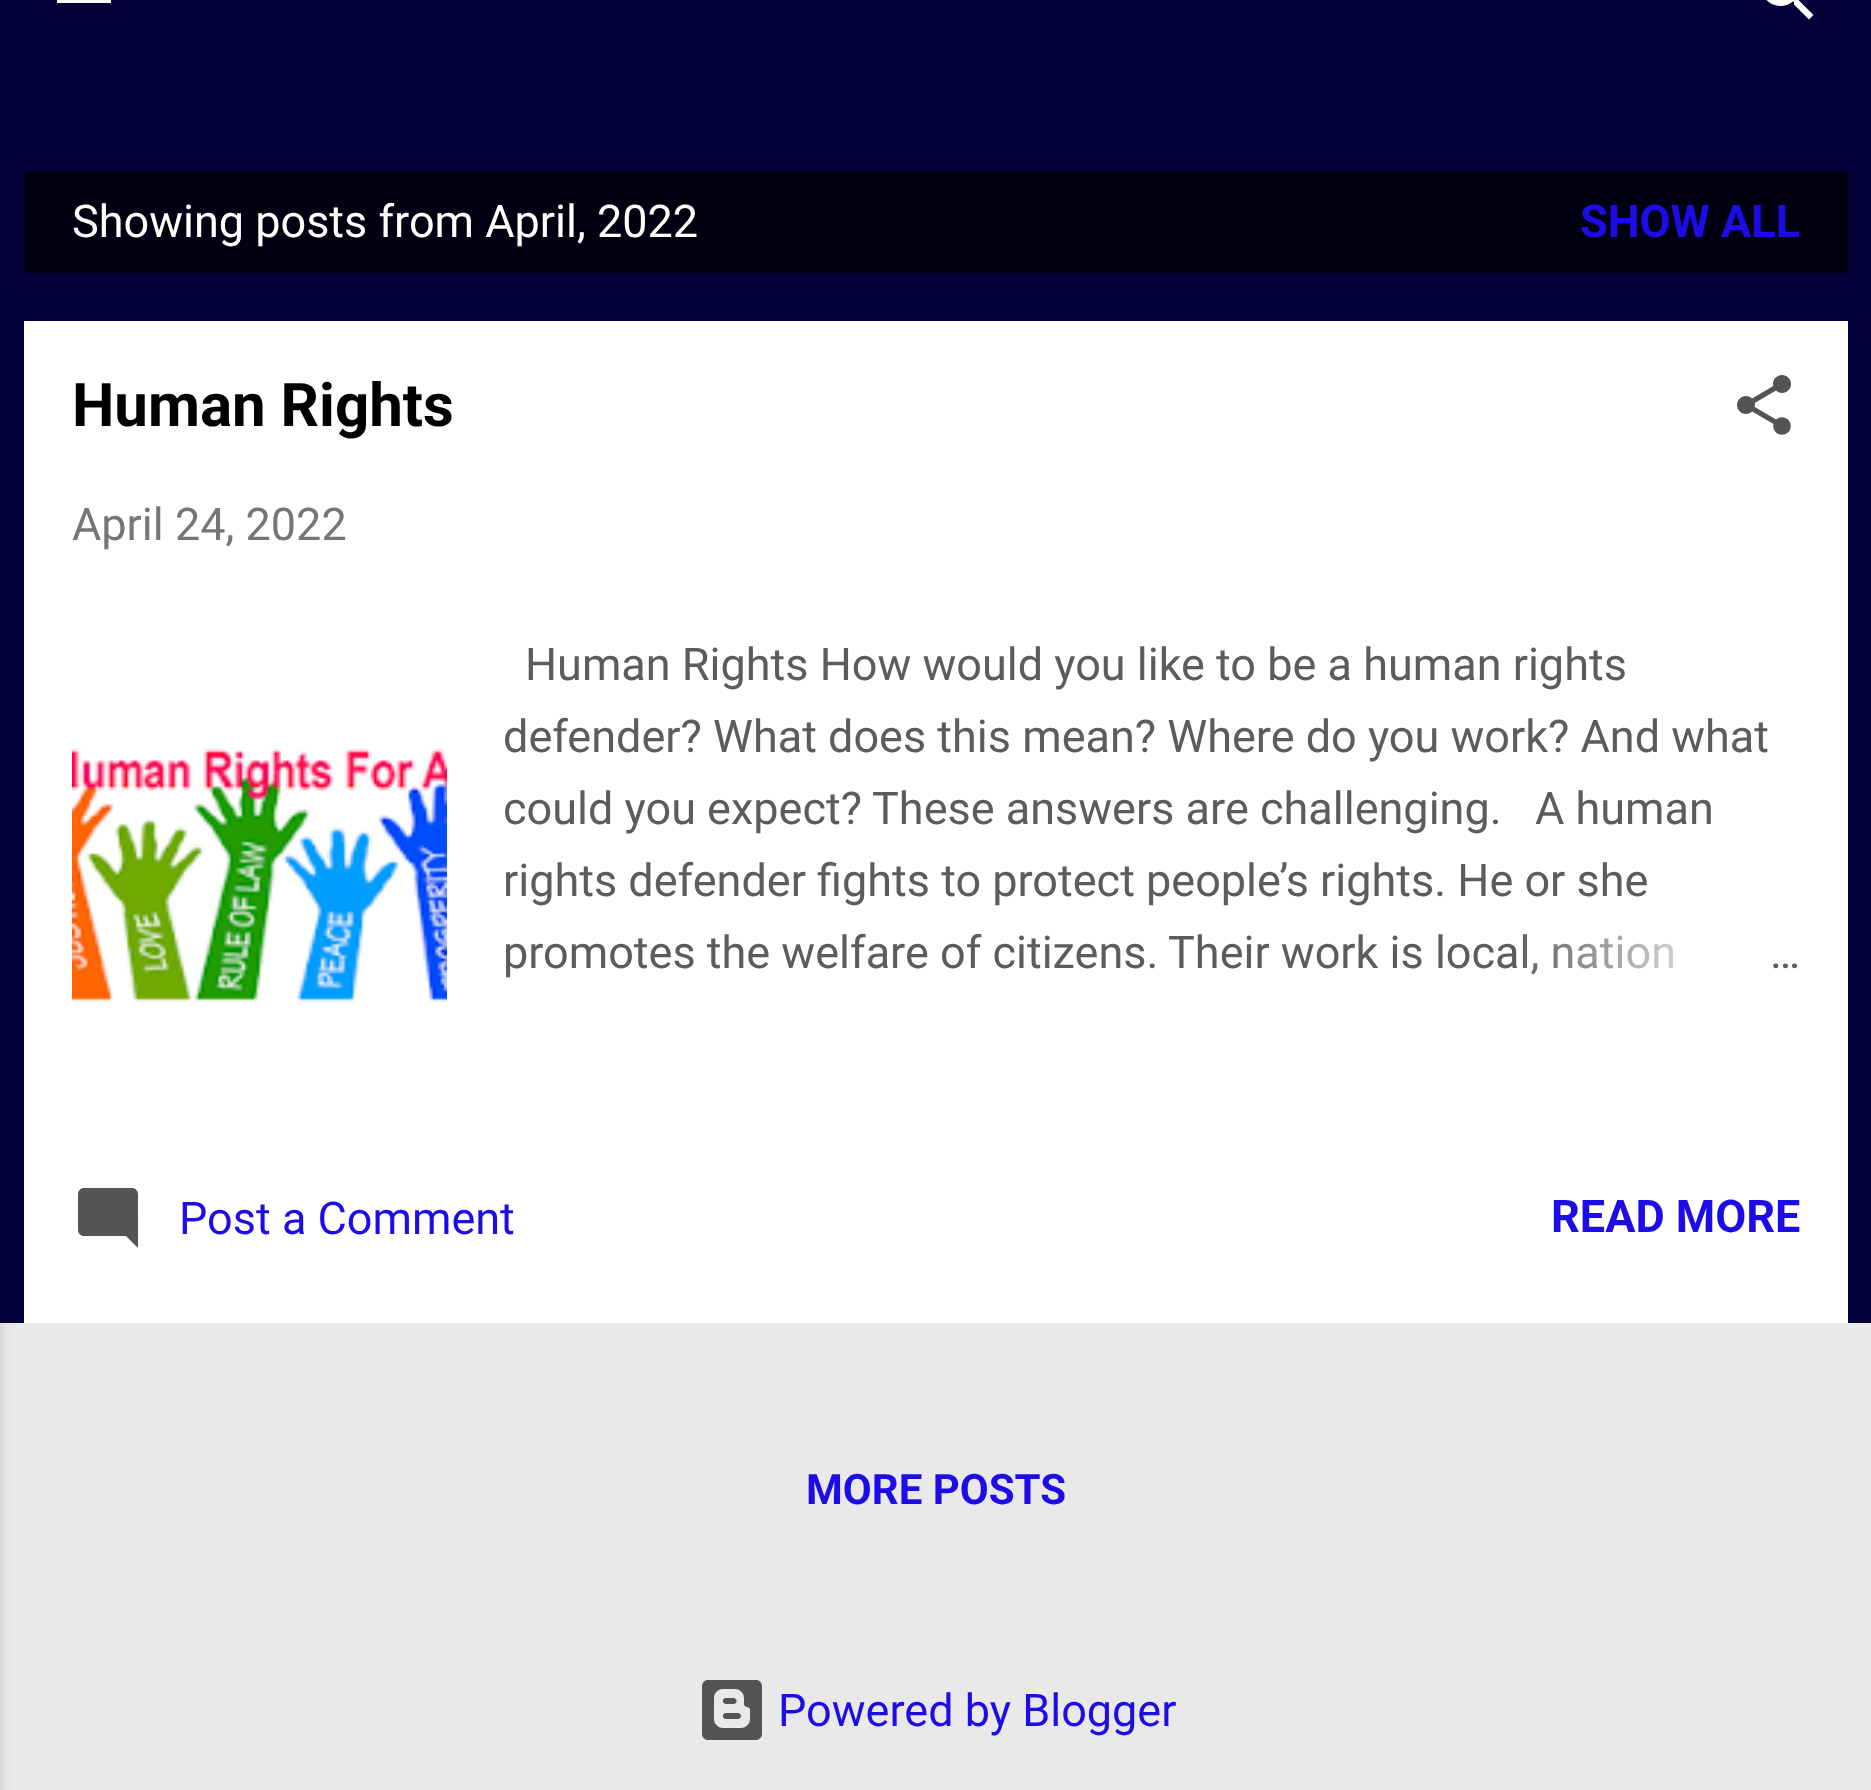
<svg xmlns="http://www.w3.org/2000/svg" width="1871" height="1790">
<style>
.a{font:45px Roboto;fill:#fff}
.b{font:bold 45px Roboto;fill:#1e0ce7}
.c{font:bold 60px Roboto;fill:#000}
.d{font:45px Roboto;fill:#767676}
.e{font:45px Roboto;fill:#5c5c5c}
.f{font:45px Roboto;fill:#1e0ce7}
.g{font:bold 42px Roboto;fill:#1e0ce7}
</style>
<defs>
<linearGradient id="g1" gradientUnits="userSpaceOnUse" x1="1800" y1="954" x2="1512" y2="954"><stop offset="0" stop-color="#fff"/><stop offset="0.2" stop-color="#fff"/><stop offset="1" stop-color="#fff" stop-opacity="0"/></linearGradient>
</defs>
<rect width="100%" height="100%" fill="#e9e9e9"/>
<path fill="#04003a" d="M0 0h1871v1323H0z"/>
<path fill="#0000001a" filter="blur(4.5px)" d="M-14 3h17v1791H-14z"/>
<path fill="#fff" d="M57 0h54v3H57z"/>
<image href="1.png" x="1766" y="0" width="48" height="20"/>
<path fill="#010011" d="M24 171h1824v102H24z"/>
<path fill="#fff" d="M24 321h1824v1002H24z"/>
<image href="2.png" x="1737" y="375" width="54" height="60"/>
<image href="3.png" x="72" y="748" width="375" height="254"/>
<image href="4.png" x="78" y="1188" width="60" height="60"/>
<image href="5.png" x="702" y="1680" width="60" height="60"/>
<text class="a" x="72" y="237">Showing posts from April, 2022</text>
<text class="b" x="1580" y="237">SHOW ALL</text>
<text class="c" x="72" y="426">Human Rights</text>
<text class="d" x="72" y="540">April 24, 2022</text>
<text class="e" x="525" y="680">Human Rights How would you like to be a human rights</text>
<text class="e" x="503" y="752">defender? What does this mean? Where do you work? And what</text>
<text class="e" x="503" y="824">could you expect?</text>
<text class="e" x="872" y="824">These answers are challenging.</text>
<text class="e" x="1535" y="824">A human</text>
<text class="e" x="503" y="896">rights defender fights to protect people’s rights. He or she</text>
<text class="e" x="503" y="968">promotes the welfare of citizens.</text>
<text class="e" x="1168" y="968">Their work is local, nation</text>
<path fill="url(#g1)" d="M1523 934h151v41H1523z"/>
<text class="e" x="1770" y="968">…</text>
<text class="f" x="179" y="1234">Post a Comment</text>
<text class="b" x="1551" y="1232">READ MORE</text>
<text class="g" x="806" y="1504">MORE POSTS</text>
<text class="f" x="778" y="1726">Powered by Blogger</text>
</svg>
